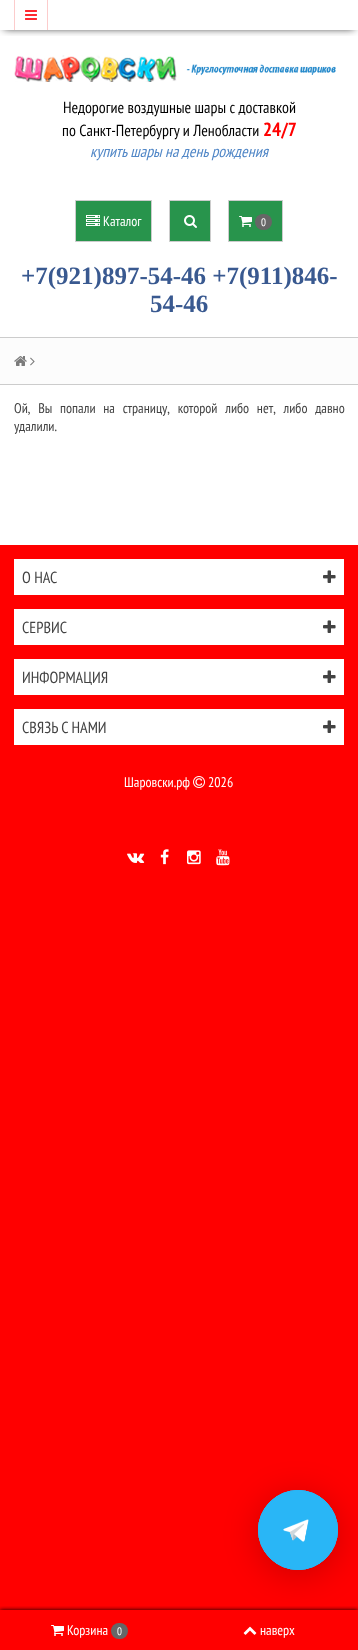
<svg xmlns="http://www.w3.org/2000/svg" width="358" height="1650">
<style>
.a{font:16px PT Sans Narrow;fill:#000}
.b{font:bold 19px PT Sans Narrow;fill:#f00}
.c{font:italic 16px PT Sans Narrow;fill:#5187c7}
.d{font:14px PT Sans Narrow;fill:#fff}
.e{font:11px PT Sans Narrow;fill:#fff}
.f{font:bold 25px Liberation Serif;fill:#395990}
.g{font:14px PT Sans Narrow;fill:#424242}
.h{font:16px PT Sans Narrow;fill:#424242}
</style>
<defs>
<clipPath id="clip1"><path d="M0 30h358v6H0z"/></clipPath>
<clipPath id="clip2"><path d="M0 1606h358v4H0z"/></clipPath>
</defs>
<rect width="100%" height="100%" fill="#f00"/>
<path fill="#fff" d="M0 0h358v337H0z"/>
<g clip-path="url(#clip1)">
<path fill="#000" filter="blur(4px)" d="M4 6h350v22H4z"/>
</g>
<path fill="#fccccc" d="M47 0h1v30H47z"/>
<path fill="#fccccc" d="M14 0h1v30H14z"/>
<image href="1.png" x="25" y="10" width="12" height="10"/>
<image href="2.png" x="14" y="55" width="322" height="27"/>
<path fill="#28944c" stroke="#ccc" d="M75.5 200.5h76v41H75.5z"/>
<image href="3.png" x="86" y="215" width="14" height="11"/>
<path fill="#28944c" stroke="#ccc" d="M169.5 200.5h41v41H169.5z"/>
<image href="4.png" x="184" y="215" width="13" height="13"/>
<path fill="#28944c" stroke="#ccc" d="M228.5 200.5h54v41H228.5z"/>
<image href="5.png" x="239" y="216" width="13" height="11"/>
<rect fill="#666" x="255" y="214" width="17" height="16" rx="8"/>
<path fill="#fcfcfc" d="M0 338h358v46H0z"/>
<path fill="#ccc" d="M0 337h358v1H0z"/>
<path fill="#ccc" d="M0 384h358v1H0z"/>
<image href="6.png" x="14" y="356" width="13" height="10"/>
<image href="7.png" x="30" y="357" width="5" height="9"/>
<path fill="#fff" d="M0 385h358v160H0z"/>
<path fill="#fff" d="M14 559h330v36H14z"/>
<image href="8.png" x="323" y="570" width="13" height="13"/>
<path fill="#fff" d="M14 609h330v36H14z"/>
<image href="8.png" x="323" y="620" width="13" height="13"/>
<path fill="#fff" d="M14 659h330v36H14z"/>
<image href="8.png" x="323" y="670" width="13" height="13"/>
<path fill="#fff" d="M14 709h330v36H14z"/>
<image href="8.png" x="323" y="720" width="13" height="13"/>
<image href="9.png" x="193" y="776" width="12" height="12"/>
<image href="10.png" x="127" y="853" width="18" height="10"/>
<image href="11.png" x="160" y="849" width="9" height="16"/>
<image href="12.png" x="187" y="850" width="14" height="15"/>
<image href="13.png" x="216" y="849" width="14" height="17"/>
<g clip-path="url(#clip2)">
<path fill="#000" filter="blur(2px)" d="M0 1610h358v40H0z"/>
</g>
<image href="14.png" x="51" y="1625" width="13" height="11"/>
<rect fill="#666" x="111" y="1623" width="17" height="16" rx="8"/>
<rect fill="#00000033" filter="blur(17.5px)" x="258" y="1495" width="80" height="80" rx="40"/>
<image href="15.png" x="243" y="1626" width="14" height="9"/>
<circle fill="#29b6f6" stroke="#29b6f6" cx="298" cy="1530" r="39.5"/>
<circle fill="none" stroke="#29b6f6" cx="298" cy="1530" r="39.5"/>
<circle fill="none" stroke="#29b6f6" cx="298" cy="1530" r="39.5"/>
<image href="16.png" x="283" y="1519" width="26" height="23"/>
<text class="a" x="63" y="113">Недорогие воздушные шары с доставкой</text>
<text class="a" x="62" y="136">по Санкт-Петербургу и Ленобласти</text>
<text class="b" x="263" y="136">24/7</text>
<text class="c" x="90" y="157">купить шары на день рождения</text>
<text class="d" x="103" y="226">Каталог</text>
<text class="e" x="261" y="226">0</text>
<text class="f" x="21" y="284">+7(921)897-54-46 +7(911)846-</text>
<text class="f" x="150" y="312">54-46</text>
<text class="g" x="14" y="413" word-spacing="4.75">Ой, Вы попали на страницу, которой либо нет, либо давно</text>
<text class="g" x="14" y="431">удалили.</text>
<text class="h" x="22" y="583">О НАС</text>
<text class="h" x="22" y="633">СЕРВИС</text>
<text class="h" x="22" y="683">ИНФОРМАЦИЯ</text>
<text class="h" x="22" y="733">СВЯЗЬ С НАМИ</text>
<text class="d" x="124" y="787">Шаровски.рф</text>
<text class="d" x="208" y="787">2026</text>
<text class="d" x="67" y="1635">Корзина</text>
<text class="e" x="117" y="1635">0</text>
<text class="d" x="260" y="1635">наверх</text>
</svg>
